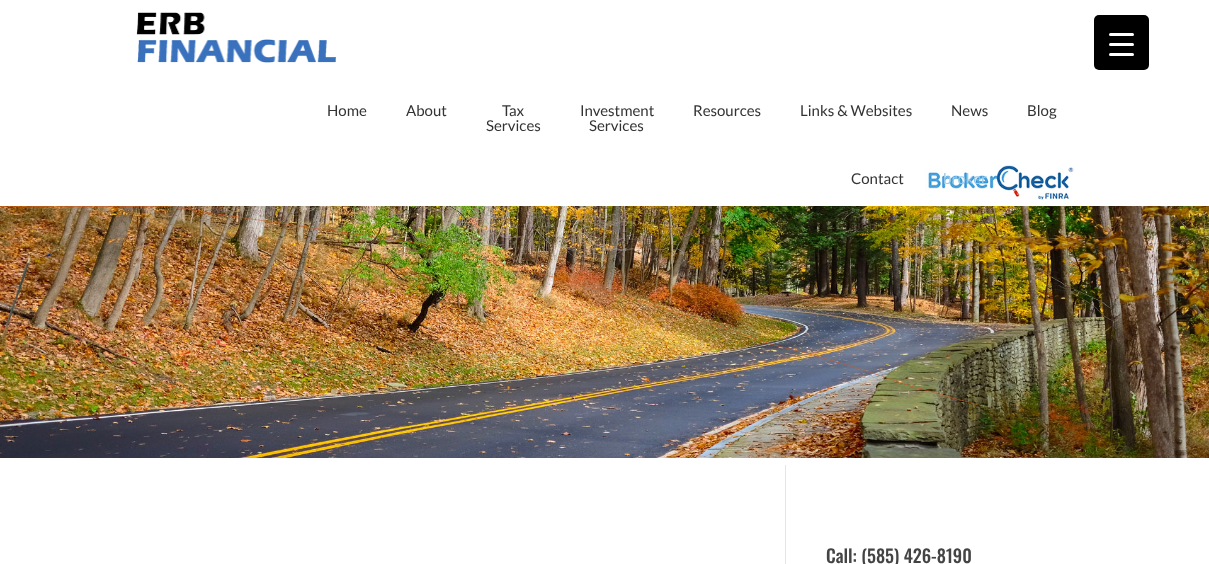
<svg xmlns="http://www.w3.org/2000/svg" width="1209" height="564">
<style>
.a{font:15px Lato;fill:#333}
.b{font:15px Lato;fill:#9bcbea}
.c{font:500 18px Oswald;fill:#444}
</style>
<rect width="100%" height="100%" fill="#fff"/>
<rect fill="#000" x="1094" y="15" width="55" height="55" rx="5"/>
<rect fill="#fff" x="1109" y="43" width="25" height="3" rx="1.5"/>
<rect fill="#fff" x="1109" y="33" width="25" height="3" rx="1.5"/>
<rect fill="#fff" x="1109" y="53" width="25" height="3" rx="1.5"/>
<image href="1.png" x="136" y="12" width="201" height="51"/>
<image href="2.png" x="925" y="165" width="149" height="35"/>
<image href="3.png" x="0" y="206" width="1209" height="252"/>
<path fill="#e5e5e5" d="M785 465h1v99H785z"/>
<text class="a" x="327" y="116">Home</text>
<text class="a" x="406" y="116">About</text>
<text class="a" x="502" y="116">Tax</text>
<text class="a" x="486" y="131">Services</text>
<text class="a" x="580" y="116">Investment</text>
<text class="a" x="589" y="131">Services</text>
<text class="a" x="693" y="116">Resources</text>
<text class="a" x="800" y="116">Links &amp; Websites</text>
<text class="a" x="951" y="116">News</text>
<text class="a" x="1027" y="116">Blog</text>
<text class="a" x="851" y="184">Contact</text>
<text class="b" x="943" y="184">broker</text>
<text class="c" x="826" y="563">Call: (585) 426-8190</text>
</svg>
